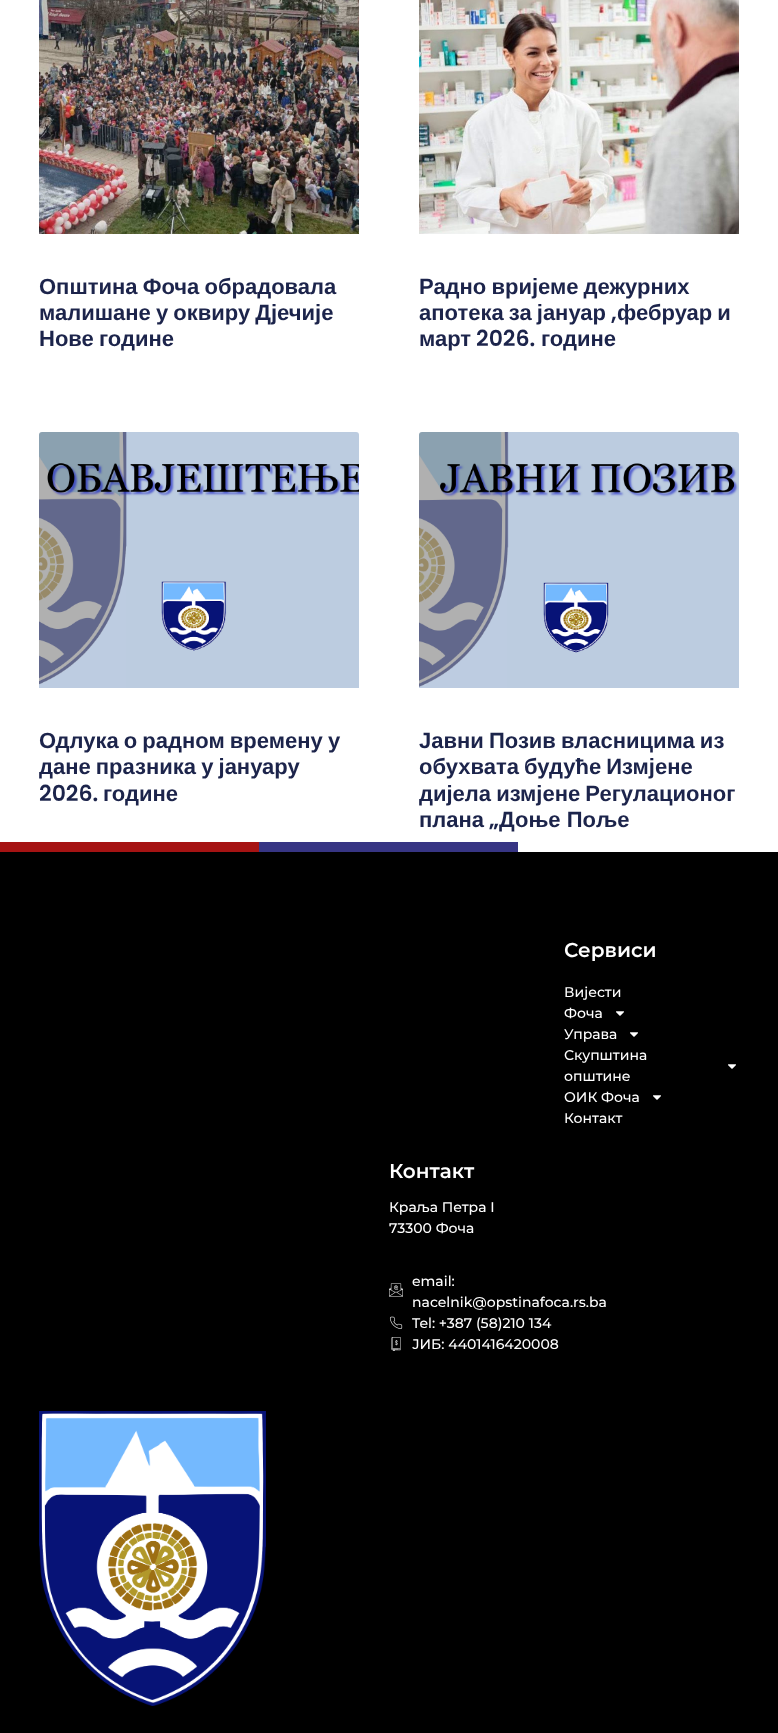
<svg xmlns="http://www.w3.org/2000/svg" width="778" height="1733">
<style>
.a{font:bold 22px Liberation Sans;fill:#1c244b}
.b{font:600 22px Poppins;fill:#1c244b}
.c{font:600 20px Montserrat;fill:#fff}
.d{font:500 14px Montserrat;fill:#fff}
</style>
<rect width="100%" height="100%" fill="#fff"/>
<image href="1.png" x="39" y="0" width="320" height="234"/>
<image href="2.png" x="419" y="0" width="320" height="234"/>
<image href="3.png" x="39" y="432" width="320" height="256"/>
<image href="4.png" x="419" y="432" width="320" height="256"/>
<path fill="#a61313" d="M0 842h259v10H0z"/>
<path fill="#373584" d="M259 842h259v10H259z"/>
<path fill="#000" d="M0 852h778v881H0z"/>
<image href="5.png" x="616" y="1011" width="8" height="5"/>
<image href="5.png" x="630" y="1032" width="8" height="5"/>
<image href="5.png" x="728" y="1064" width="8" height="5"/>
<image href="5.png" x="653" y="1095" width="8" height="5"/>
<image href="6.png" x="389" y="1283" width="14" height="14"/>
<image href="7.png" x="389" y="1316" width="14" height="13"/>
<image href="8.png" x="391" y="1337" width="10" height="14"/>
<image href="9.png" x="39" y="1411" width="227" height="295"/>
<text class="a" x="39" y="294" word-spacing="-1">Општина Фоча обрадовала</text>
<text class="a" x="39" y="320" word-spacing="-1">малишане у оквиру Дјечије</text>
<text class="a" x="39" y="346" word-spacing="-1">Нове године</text>
<text class="a" x="419" y="294" word-spacing="-1">Радно вријеме дежурних</text>
<text class="a" x="419" y="320" word-spacing="-1">апотека за јануар</text>
<text class="b" x="611" y="320">,</text>
<text class="a" x="617" y="320" word-spacing="-1">фебруар и</text>
<text class="a" x="419" y="346">март</text>
<text class="b" x="476" y="346">2026.</text>
<text class="a" x="541" y="346">године</text>
<text class="a" x="39" y="748" word-spacing="-1">Одлука о радном времену у</text>
<text class="a" x="39" y="774" word-spacing="-1">дане празника у јануару</text>
<text class="b" x="39" y="801">2026.</text>
<text class="a" x="103" y="801">године</text>
<text class="a" x="419" y="748" word-spacing="-1">Јавни Позив власницима из</text>
<text class="a" x="419" y="774" word-spacing="-1">обухвата будуће Измјене</text>
<text class="a" x="419" y="801" word-spacing="-1">дијела измјене Регулационог</text>
<text class="a" x="419" y="827">плана</text>
<text class="b" x="489" y="827">„</text>
<text class="a" x="499" y="827">Доње Поље</text>
<text class="c" x="564" y="957">Сервиси</text>
<text class="d" x="564" y="997">Вијести</text>
<text class="d" x="564" y="1018">Фоча</text>
<text class="d" x="564" y="1039">Управа</text>
<text class="d" x="564" y="1060">Скупштина</text>
<text class="d" x="564" y="1081">општине</text>
<text class="d" x="564" y="1102">ОИК Фоча</text>
<text class="d" x="564" y="1123">Контакт</text>
<text class="c" x="389" y="1178">Контакт</text>
<text class="d" x="389" y="1212">Краља Петра I</text>
<text class="d" x="389" y="1233">73300 Фоча</text>
<text class="d" x="412" y="1286">email:</text>
<text class="d" x="412" y="1307">nacelnik@opstinafoca.rs.ba</text>
<text class="d" x="412" y="1328">Tel: +387 (58)210 134</text>
<text class="d" x="412" y="1349">ЈИБ: 4401416420008</text>
</svg>
